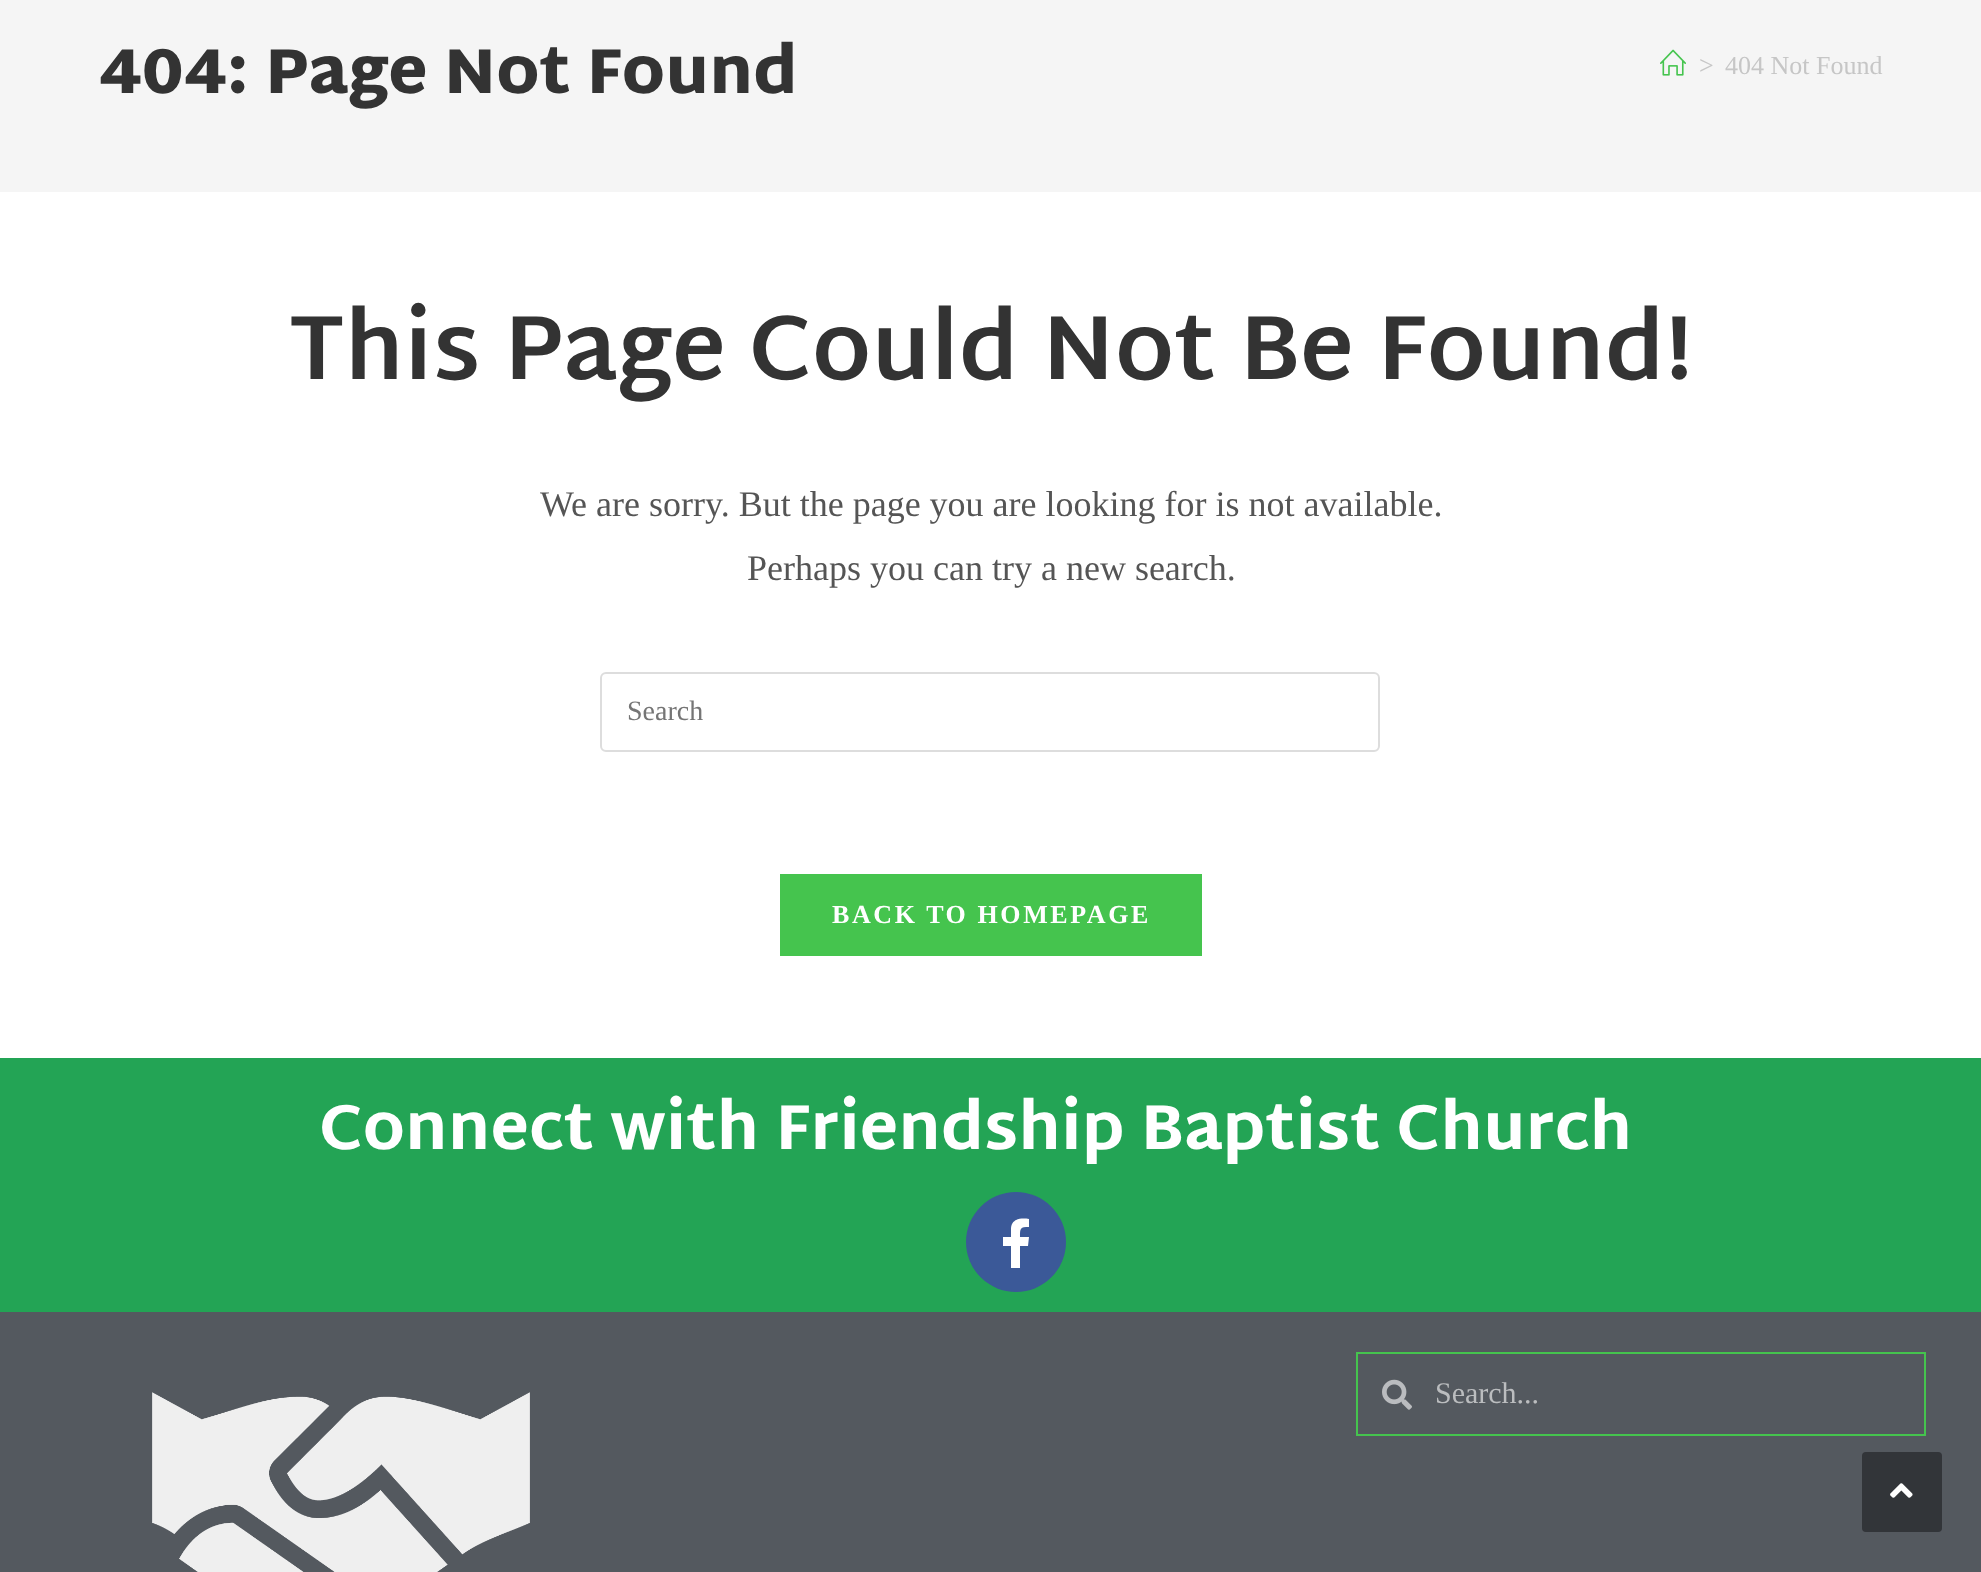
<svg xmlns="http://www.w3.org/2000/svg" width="1981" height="1572">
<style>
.a{font:900 64px Martel Sans;fill:#333}
.b{font:26px Liberation Serif;fill:#c6c6c6}
.c{font:bold 92px Martel Sans;fill:#333}
.d{font:36px Liberation Serif;fill:#555}
.e{font:28px Liberation Serif;fill:#757575}
.f{font:bold 26px Liberation Serif;letter-spacing:2.6px;fill:#fff}
.g{font:800 64px Martel Sans;fill:#fff}
.h{font:30px Liberation Serif;fill:#bbbdbf}
</style>
<rect width="100%" height="100%" fill="#fff"/>
<path fill="#f5f5f5" d="M0 0h1981v192H0z"/>
<image href="1.png" x="1660" y="49" width="26" height="27"/>
<rect fill="none" stroke="#ddd" stroke-width="2" x="601" y="673" width="778" height="78" rx="5"/>
<path fill="#45c44e" d="M780 874h422v82H780z"/>
<path fill="#23a455" d="M0 1058h1981v254H0z"/>
<circle fill="#3b5998" cx="1016" cy="1242" r="50"/>
<path fill="#fff" d="M1028 1246h-8v22h-9v-22h-8v-9h8v-9c1-10 11-10 18-9v8c-9 0-9 1-9 10h9z"/>
<path fill="#54595f" d="M0 1312h1981v260H0z"/>
<image href="2.png" x="152" y="1392" width="378" height="180"/>
<path fill="none" stroke="#45c44e" stroke-width="2" d="M1357 1353h568v82H1357z"/>
<image href="3.png" x="1382" y="1379" width="30" height="31"/>
<rect fill="#323539" x="1862" y="1452" width="80" height="80" rx="4"/>
<image href="4.png" x="1890" y="1483" width="23" height="15"/>
<text class="a" x="99" y="93">404: Page Not Found</text>
<text class="b" x="1699" y="74">&gt;</text>
<text class="b" x="1725" y="74">404 Not Found</text>
<text class="c" x="289" y="379">This Page Could Not Be Found!</text>
<text class="d" x="540" y="516">We are sorry. But the page you are looking for is not available.</text>
<text class="d" x="747" y="580">Perhaps you can try a new search.</text>
<text class="e" x="627" y="720">Search</text>
<text class="f" x="832" y="923">BACK TO HOMEPAGE</text>
<text class="g" x="319" y="1149">Connect with Friendship Baptist Church</text>
<text class="h" x="1435" y="1403">Search...</text>
</svg>
